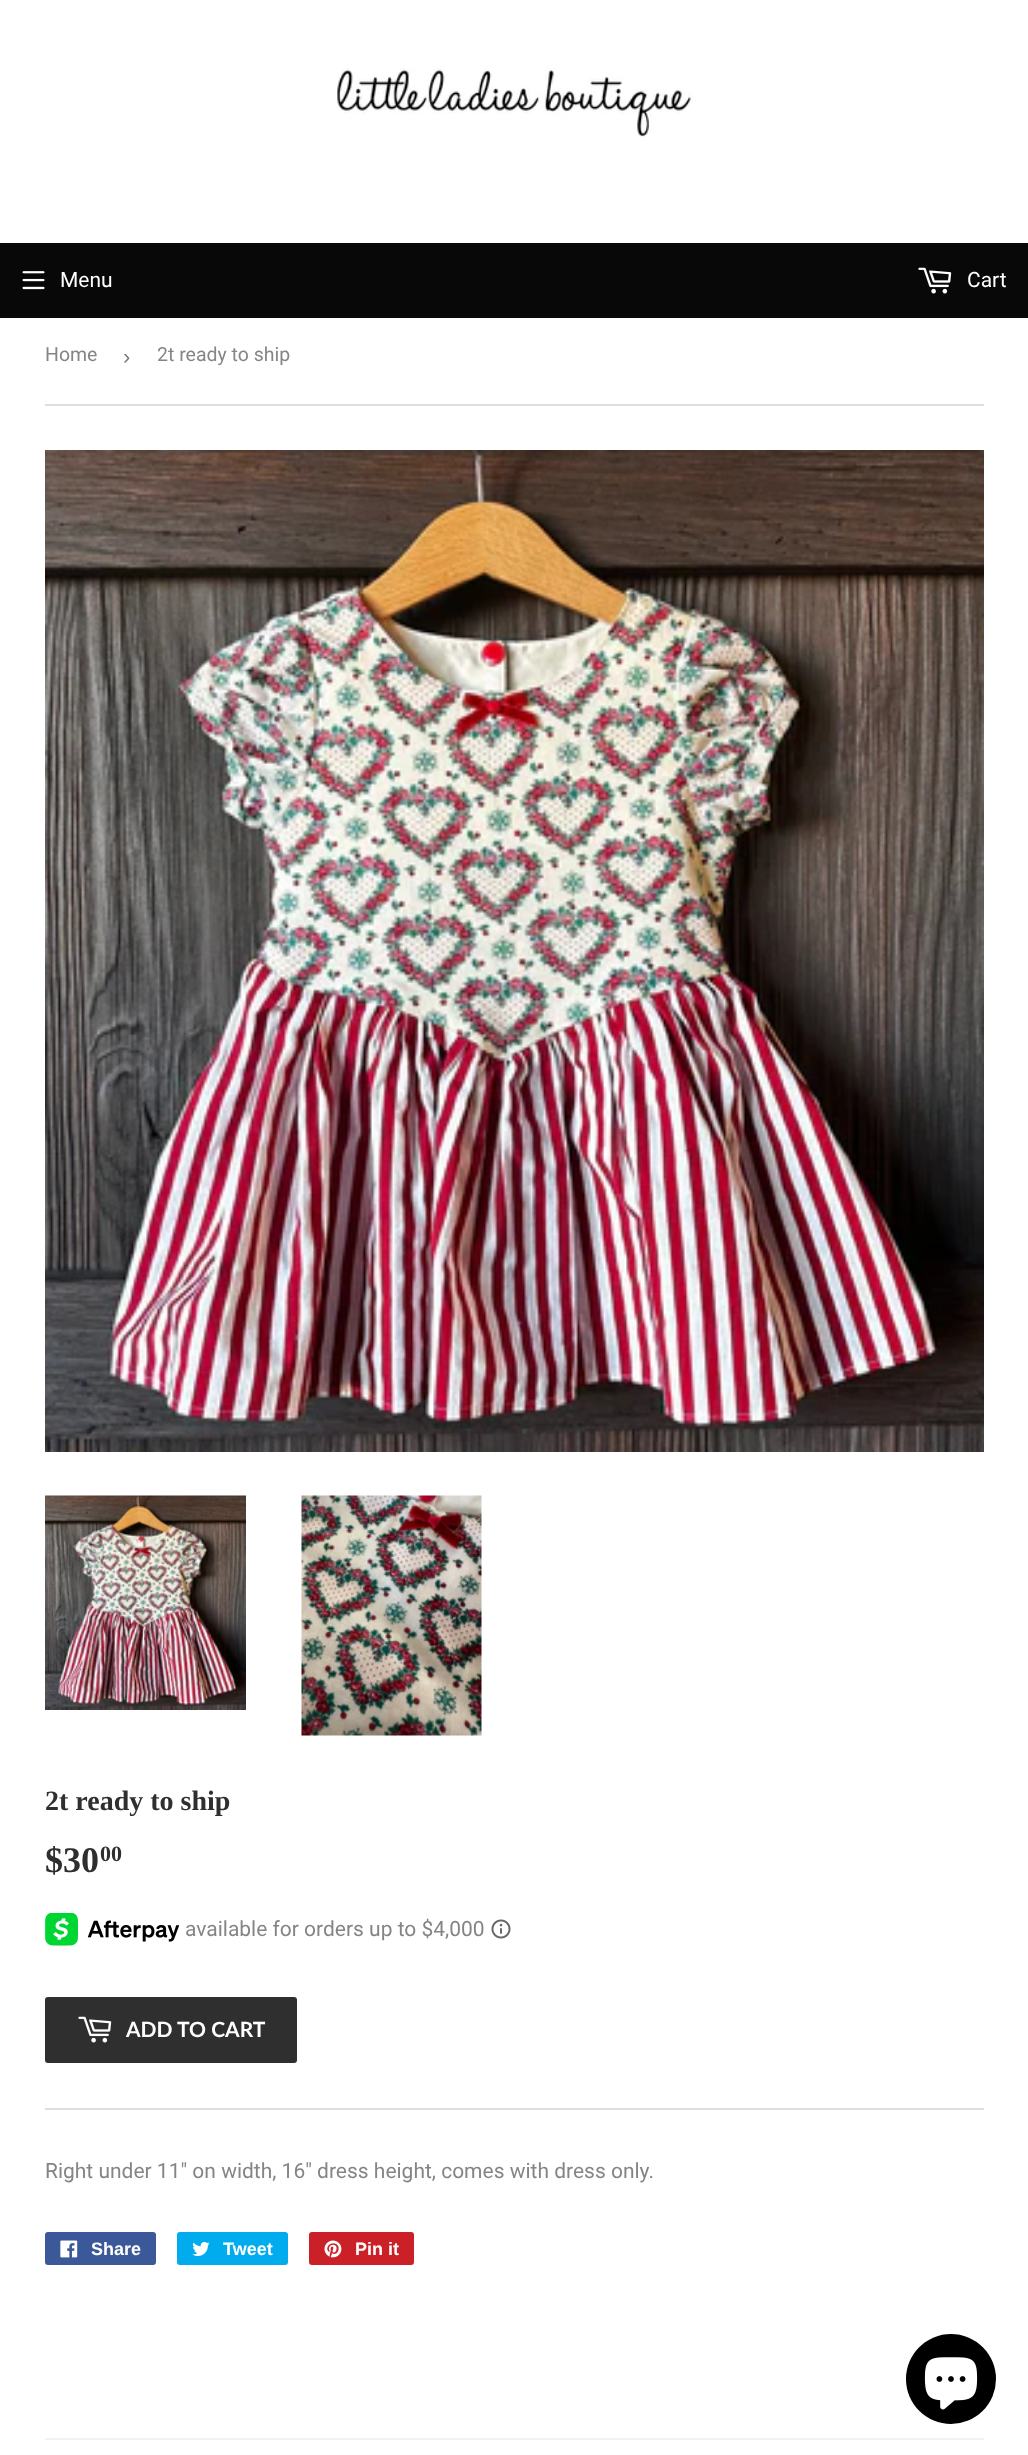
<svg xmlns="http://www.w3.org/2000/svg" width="1028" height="2455">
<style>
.a{font:21px Roboto;fill:#fff}
.b{font:19.5px Roboto;fill:#858585}
.c{font:22px Liberation Sans;fill:#767676}
.d{font:bold 28px Liberation Serif;fill:#2f2f2f}
.e{font:bold 36px Liberation Serif;fill:#2f2f2f}
.f{font:bold 22px Liberation Serif;fill:#2f2f2f}
.g{font:21px Roboto;fill:#858585}
.h{font:bold 21px Lato;fill:#fff}
.i{font:bold 18px Liberation Sans;fill:#fff}
</style>
<rect width="100%" height="100%" fill="#fff"/>
<image href="1.png" x="337" y="68" width="356" height="69"/>
<path fill="#080808" d="M0 243h1028v75H0z"/>
<image href="2.png" x="22" y="271" width="23" height="19"/>
<image href="3.png" x="918" y="267" width="34" height="27"/>
<path fill="#dedede" d="M45 404h939v2H45z"/>
<image href="4.png" x="45" y="450" width="939" height="1002"/>
<image href="5.png" x="45" y="1495" width="201" height="215"/>
<image href="6.png" x="301" y="1495" width="181" height="241"/>
<image href="7.png" x="45" y="1913" width="135" height="33"/>
<image href="8.png" x="491" y="1919" width="20" height="20"/>
<rect fill="#2f2f2f" x="45" y="1997" width="252" height="66" rx="3"/>
<image href="9.png" x="78" y="2016" width="34" height="27"/>
<path fill="#dedede" d="M45 2108h939v2H45z"/>
<rect fill="#3b5998" x="45" y="2232" width="111" height="33" rx="3"/>
<image href="10.png" x="60" y="2240" width="18" height="18"/>
<rect fill="#00aced" x="177" y="2232" width="111" height="33" rx="3"/>
<image href="11.png" x="192" y="2241" width="18" height="15"/>
<rect fill="#cb2027" x="309" y="2232" width="105" height="33" rx="3"/>
<image href="12.png" x="324" y="2240" width="18" height="18"/>
<circle fill="#000" cx="951" cy="2379" r="45"/>
<image href="13.png" x="924" y="2357" width="54" height="53"/>
<path fill="#f2f2f2" d="M45 2438h939v2H45z"/>
<text class="a" x="60" y="287">Menu</text>
<text class="a" x="967" y="287">Cart</text>
<text class="b" x="45" y="361">Home</text>
<text class="c" x="123" y="364">›</text>
<text class="b" x="157" y="361">2t ready to ship</text>
<text class="d" x="45" y="1810">2t ready to ship</text>
<text class="e" x="45" y="1872">$30</text>
<text class="f" x="100" y="1861">00</text>
<text class="g" x="185" y="1936">available for orders up to $4,000</text>
<text class="h" x="126" y="2037">ADD TO CART</text>
<text class="g" x="45" y="2178">Right under 11" on width, 16" dress height, comes with dress only.</text>
<text class="i" x="91" y="2255">Share</text>
<text class="i" x="223" y="2255">Tweet</text>
<text class="i" x="355" y="2255">Pin it</text>
</svg>
